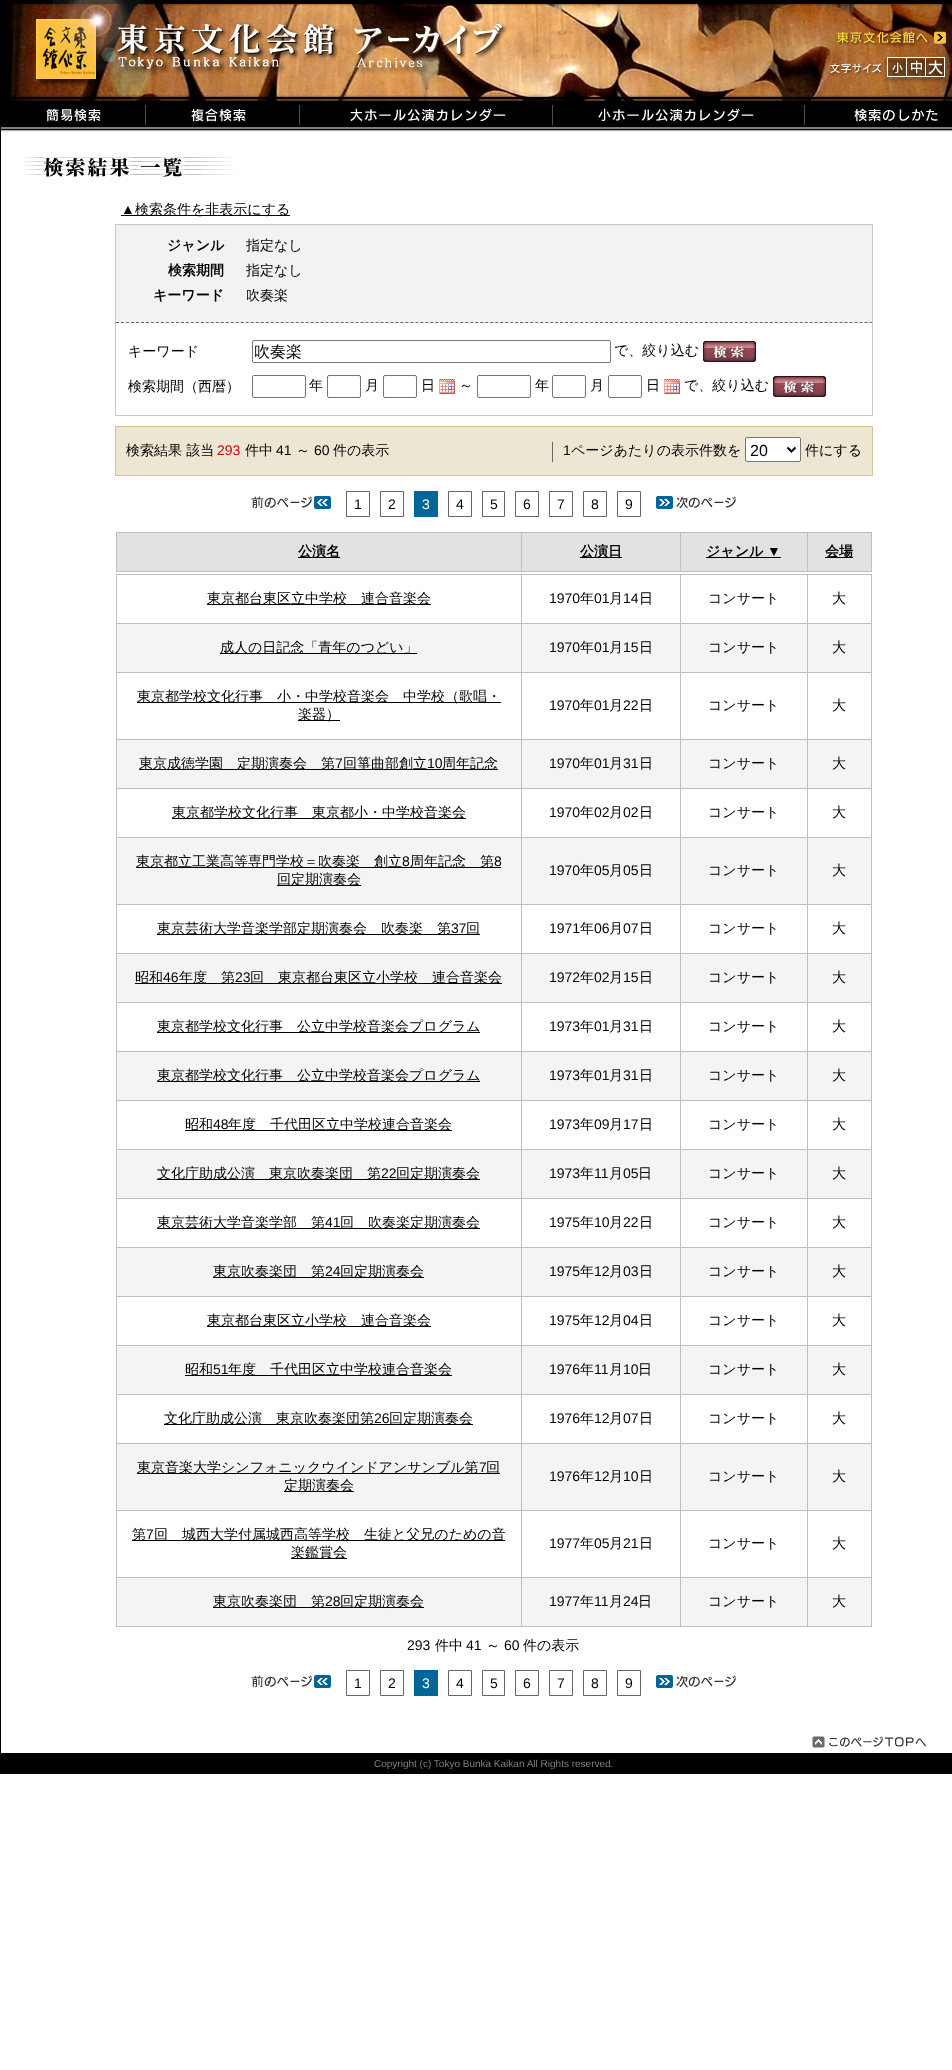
<svg xmlns="http://www.w3.org/2000/svg" width="952" height="2070">
<style>
.a{font:14px Liberation Sans;fill:#000}
.b{font:500 14px WenQuanYi Zen Hei;fill:#000}
.c{font:bold 14px WenQuanYi Zen Hei;fill:#000}
.d{font:500 16px WenQuanYi Zen Hei;fill:#000}
.e{font:14px Liberation Sans;fill:#c00}
.f{font:16px Liberation Sans;fill:#000}
.g{font:14px Liberation Sans;fill:#fff}
.h{font:bold 14px Liberation Sans;fill:#000}
.i{font:10px Liberation Sans;fill:#808080}
</style>
<rect width="100%" height="100%" fill="#fff"/>
<path fill="#000" d="M0 0h1v1774H0z"/>
<image href="1.png" x="1" y="0" width="951" height="101"/>
<image href="2.png" x="36" y="0" width="471" height="86"/>
<image href="3.png" x="837" y="31" width="109" height="15"/>
<image href="4.png" x="830" y="57" width="57" height="26"/>
<image href="5.png" x="887" y="57" width="19" height="26"/>
<image href="6.png" x="906" y="57" width="19" height="26"/>
<image href="7.png" x="925" y="57" width="21" height="26"/>
<image href="8.png" x="1" y="101" width="144" height="31"/>
<image href="9.png" x="145" y="101" width="154" height="31"/>
<image href="10.png" x="299" y="101" width="253" height="31"/>
<image href="11.png" x="552" y="101" width="252" height="31"/>
<image href="12.png" x="804" y="101" width="148" height="31"/>
<image href="13.png" x="24" y="157" width="210" height="20"/>
<path fill="#000" d="M121 215h169v1H121z"/>
<path fill="none" stroke="#c8c8c8" d="M115.5 224.5h757v191H115.5z"/>
<path fill="#f2f2f2" d="M116 225h756v98H116z"/>
<path fill="none" stroke="#666" stroke-dasharray="3 1.99" d="M116 322.5h756"/>
<rect fill="none" stroke="#767676" x="252.5" y="340.5" width="358" height="22" rx="1.5"/>
<image href="14.png" x="703" y="341" width="53" height="21"/>
<rect fill="none" stroke="#767676" x="252.5" y="375.5" width="53" height="22" rx="1.5"/>
<rect fill="none" stroke="#767676" x="327.5" y="375.5" width="33" height="22" rx="1.5"/>
<rect fill="none" stroke="#767676" x="383.5" y="375.5" width="33" height="22" rx="1.5"/>
<image href="15.png" x="439" y="379" width="16" height="15"/>
<rect fill="none" stroke="#767676" x="477.5" y="375.5" width="53" height="22" rx="1.5"/>
<rect fill="none" stroke="#767676" x="552.5" y="375.5" width="33" height="22" rx="1.5"/>
<rect fill="none" stroke="#767676" x="608.5" y="375.5" width="33" height="22" rx="1.5"/>
<image href="15.png" x="664" y="379" width="16" height="15"/>
<image href="14.png" x="773" y="376" width="53" height="21"/>
<path fill="#ede6d3" stroke="#d3c094" d="M115.5 426.5h757v49H115.5z"/>
<path fill="#666" d="M552 442h1v20H552z"/>
<rect fill="#fff" stroke="#767676" x="745.5" y="437.5" width="55" height="24" rx="1.5"/>
<path fill="none" stroke="#000" stroke-width="2" d="M787.5 447.5l4 4l4-4"/>
<image href="16.png" x="251" y="496" width="80" height="13"/>
<path fill="none" stroke="#666" d="M346.5 491.5h23v25H346.5z"/>
<path fill="none" stroke="#666" d="M380.5 491.5h23v25H380.5z"/>
<path fill="#069" d="M414 491h24v26H414z"/>
<path fill="none" stroke="#666" d="M448.5 491.5h23v25H448.5z"/>
<path fill="none" stroke="#666" d="M482.5 491.5h22v25H482.5z"/>
<path fill="none" stroke="#666" d="M515.5 491.5h23v25H515.5z"/>
<path fill="none" stroke="#666" d="M549.5 491.5h23v25H549.5z"/>
<path fill="none" stroke="#666" d="M583.5 491.5h23v25H583.5z"/>
<path fill="none" stroke="#666" d="M617.5 491.5h23v25H617.5z"/>
<image href="17.png" x="656" y="496" width="80" height="13"/>
<path fill="#e2e2e2" d="M117 533h754v38H117z"/>
<path fill="#bfbfbf" d="M807 532h65v1H807z"/>
<path fill="#bfbfbf" d="M871 532h1v40H871z"/>
<path fill="#bfbfbf" d="M807 571h65v1H807z"/>
<path fill="#bfbfbf" d="M807 532h1v40H807z"/>
<path fill="#bfbfbf" d="M680 532h128v1H680z"/>
<path fill="#bfbfbf" d="M680 571h128v1H680z"/>
<path fill="#bfbfbf" d="M680 532h1v40H680z"/>
<path fill="#bfbfbf" d="M521 532h160v1H521z"/>
<path fill="#bfbfbf" d="M521 571h160v1H521z"/>
<path fill="#bfbfbf" d="M521 532h1v40H521z"/>
<path fill="#bfbfbf" d="M116 532h406v1H116z"/>
<path fill="#bfbfbf" d="M116 571h406v1H116z"/>
<path fill="#bfbfbf" d="M116 532h1v40H116z"/>
<path fill="#000" d="M298 557h42v1H298z"/>
<path fill="#000" d="M580 557h42v1H580z"/>
<path fill="#000" d="M706 557h75v1H706z"/>
<path fill="#000" d="M825 557h28v1H825z"/>
<path fill="#bfbfbf" d="M807 574h65v1H807z"/>
<path fill="#bfbfbf" d="M807 623h65v1H807z"/>
<path fill="#f4f4f4" d="M117 624h754v48H117z"/>
<path fill="#bfbfbf" d="M807 672h65v1H807z"/>
<path fill="#bfbfbf" d="M807 739h65v1H807z"/>
<path fill="#f4f4f4" d="M117 740h754v48H117z"/>
<path fill="#bfbfbf" d="M807 788h65v1H807z"/>
<path fill="#bfbfbf" d="M807 837h65v1H807z"/>
<path fill="#f4f4f4" d="M117 838h754v66H117z"/>
<path fill="#bfbfbf" d="M807 904h65v1H807z"/>
<path fill="#bfbfbf" d="M807 953h65v1H807z"/>
<path fill="#f4f4f4" d="M117 954h754v48H117z"/>
<path fill="#bfbfbf" d="M807 1002h65v1H807z"/>
<path fill="#bfbfbf" d="M807 1051h65v1H807z"/>
<path fill="#f4f4f4" d="M117 1052h754v48H117z"/>
<path fill="#bfbfbf" d="M807 1100h65v1H807z"/>
<path fill="#bfbfbf" d="M807 1149h65v1H807z"/>
<path fill="#f4f4f4" d="M117 1150h754v48H117z"/>
<path fill="#bfbfbf" d="M807 1198h65v1H807z"/>
<path fill="#bfbfbf" d="M807 1247h65v1H807z"/>
<path fill="#f4f4f4" d="M117 1248h754v48H117z"/>
<path fill="#bfbfbf" d="M807 1296h65v1H807z"/>
<path fill="#bfbfbf" d="M807 1345h65v1H807z"/>
<path fill="#f4f4f4" d="M117 1346h754v48H117z"/>
<path fill="#bfbfbf" d="M807 1394h65v1H807z"/>
<path fill="#bfbfbf" d="M807 1443h65v1H807z"/>
<path fill="#f4f4f4" d="M117 1444h754v66H117z"/>
<path fill="#bfbfbf" d="M807 1510h65v1H807z"/>
<path fill="#bfbfbf" d="M807 1577h65v1H807z"/>
<path fill="#f4f4f4" d="M117 1578h754v48H117z"/>
<path fill="#bfbfbf" d="M871 1577h1v50H871z"/>
<path fill="#bfbfbf" d="M807 1626h65v1H807z"/>
<path fill="#bfbfbf" d="M807 1577h1v50H807z"/>
<path fill="#bfbfbf" d="M680 1577h128v1H680z"/>
<path fill="#bfbfbf" d="M807 1510h1v68H807z"/>
<path fill="#bfbfbf" d="M680 1510h128v1H680z"/>
<path fill="#bfbfbf" d="M807 1443h1v68H807z"/>
<path fill="#bfbfbf" d="M680 1443h128v1H680z"/>
<path fill="#bfbfbf" d="M807 1394h1v50H807z"/>
<path fill="#bfbfbf" d="M680 1394h128v1H680z"/>
<path fill="#bfbfbf" d="M807 1345h1v50H807z"/>
<path fill="#bfbfbf" d="M680 1345h128v1H680z"/>
<path fill="#bfbfbf" d="M807 1296h1v50H807z"/>
<path fill="#bfbfbf" d="M680 1296h128v1H680z"/>
<path fill="#bfbfbf" d="M807 1247h1v50H807z"/>
<path fill="#bfbfbf" d="M680 1247h128v1H680z"/>
<path fill="#bfbfbf" d="M807 1198h1v50H807z"/>
<path fill="#bfbfbf" d="M680 1198h128v1H680z"/>
<path fill="#bfbfbf" d="M807 1149h1v50H807z"/>
<path fill="#bfbfbf" d="M680 1149h128v1H680z"/>
<path fill="#bfbfbf" d="M807 1100h1v50H807z"/>
<path fill="#bfbfbf" d="M680 1100h128v1H680z"/>
<path fill="#bfbfbf" d="M807 1051h1v50H807z"/>
<path fill="#bfbfbf" d="M680 1051h128v1H680z"/>
<path fill="#bfbfbf" d="M807 1002h1v50H807z"/>
<path fill="#bfbfbf" d="M680 1002h128v1H680z"/>
<path fill="#bfbfbf" d="M807 953h1v50H807z"/>
<path fill="#bfbfbf" d="M680 953h128v1H680z"/>
<path fill="#bfbfbf" d="M807 904h1v50H807z"/>
<path fill="#bfbfbf" d="M680 904h128v1H680z"/>
<path fill="#bfbfbf" d="M807 837h1v68H807z"/>
<path fill="#bfbfbf" d="M680 837h128v1H680z"/>
<path fill="#bfbfbf" d="M807 788h1v50H807z"/>
<path fill="#bfbfbf" d="M680 788h128v1H680z"/>
<path fill="#bfbfbf" d="M807 739h1v50H807z"/>
<path fill="#bfbfbf" d="M680 739h128v1H680z"/>
<path fill="#bfbfbf" d="M807 672h1v68H807z"/>
<path fill="#bfbfbf" d="M680 672h128v1H680z"/>
<path fill="#bfbfbf" d="M807 623h1v50H807z"/>
<path fill="#bfbfbf" d="M680 623h128v1H680z"/>
<path fill="#bfbfbf" d="M807 574h1v50H807z"/>
<path fill="#bfbfbf" d="M680 574h128v1H680z"/>
<path fill="#bfbfbf" d="M680 1626h128v1H680z"/>
<path fill="#bfbfbf" d="M680 1577h1v50H680z"/>
<path fill="#bfbfbf" d="M521 1577h160v1H521z"/>
<path fill="#bfbfbf" d="M680 1510h1v68H680z"/>
<path fill="#bfbfbf" d="M521 1510h160v1H521z"/>
<path fill="#bfbfbf" d="M680 1443h1v68H680z"/>
<path fill="#bfbfbf" d="M521 1443h160v1H521z"/>
<path fill="#bfbfbf" d="M680 1394h1v50H680z"/>
<path fill="#bfbfbf" d="M521 1394h160v1H521z"/>
<path fill="#bfbfbf" d="M680 1345h1v50H680z"/>
<path fill="#bfbfbf" d="M521 1345h160v1H521z"/>
<path fill="#bfbfbf" d="M680 1296h1v50H680z"/>
<path fill="#bfbfbf" d="M521 1296h160v1H521z"/>
<path fill="#bfbfbf" d="M680 1247h1v50H680z"/>
<path fill="#bfbfbf" d="M521 1247h160v1H521z"/>
<path fill="#bfbfbf" d="M680 1198h1v50H680z"/>
<path fill="#bfbfbf" d="M521 1198h160v1H521z"/>
<path fill="#bfbfbf" d="M680 1149h1v50H680z"/>
<path fill="#bfbfbf" d="M521 1149h160v1H521z"/>
<path fill="#bfbfbf" d="M680 1100h1v50H680z"/>
<path fill="#bfbfbf" d="M521 1100h160v1H521z"/>
<path fill="#bfbfbf" d="M680 1051h1v50H680z"/>
<path fill="#bfbfbf" d="M521 1051h160v1H521z"/>
<path fill="#bfbfbf" d="M680 1002h1v50H680z"/>
<path fill="#bfbfbf" d="M521 1002h160v1H521z"/>
<path fill="#bfbfbf" d="M680 953h1v50H680z"/>
<path fill="#bfbfbf" d="M521 953h160v1H521z"/>
<path fill="#bfbfbf" d="M680 904h1v50H680z"/>
<path fill="#bfbfbf" d="M521 904h160v1H521z"/>
<path fill="#bfbfbf" d="M680 837h1v68H680z"/>
<path fill="#bfbfbf" d="M521 837h160v1H521z"/>
<path fill="#bfbfbf" d="M680 788h1v50H680z"/>
<path fill="#bfbfbf" d="M521 788h160v1H521z"/>
<path fill="#bfbfbf" d="M680 739h1v50H680z"/>
<path fill="#bfbfbf" d="M521 739h160v1H521z"/>
<path fill="#bfbfbf" d="M680 672h1v68H680z"/>
<path fill="#bfbfbf" d="M521 672h160v1H521z"/>
<path fill="#bfbfbf" d="M680 623h1v50H680z"/>
<path fill="#bfbfbf" d="M521 623h160v1H521z"/>
<path fill="#bfbfbf" d="M680 574h1v50H680z"/>
<path fill="#bfbfbf" d="M521 574h160v1H521z"/>
<path fill="#bfbfbf" d="M521 1626h160v1H521z"/>
<path fill="#bfbfbf" d="M521 1577h1v50H521z"/>
<path fill="#bfbfbf" d="M116 1577h406v1H116z"/>
<path fill="#bfbfbf" d="M521 1510h1v68H521z"/>
<path fill="#bfbfbf" d="M116 1510h406v1H116z"/>
<path fill="#bfbfbf" d="M521 1443h1v68H521z"/>
<path fill="#bfbfbf" d="M116 1443h406v1H116z"/>
<path fill="#bfbfbf" d="M521 1394h1v50H521z"/>
<path fill="#bfbfbf" d="M116 1394h406v1H116z"/>
<path fill="#bfbfbf" d="M521 1345h1v50H521z"/>
<path fill="#bfbfbf" d="M116 1345h406v1H116z"/>
<path fill="#bfbfbf" d="M521 1296h1v50H521z"/>
<path fill="#bfbfbf" d="M116 1296h406v1H116z"/>
<path fill="#bfbfbf" d="M521 1247h1v50H521z"/>
<path fill="#bfbfbf" d="M116 1247h406v1H116z"/>
<path fill="#bfbfbf" d="M521 1198h1v50H521z"/>
<path fill="#bfbfbf" d="M116 1198h406v1H116z"/>
<path fill="#bfbfbf" d="M521 1149h1v50H521z"/>
<path fill="#bfbfbf" d="M116 1149h406v1H116z"/>
<path fill="#bfbfbf" d="M521 1100h1v50H521z"/>
<path fill="#bfbfbf" d="M116 1100h406v1H116z"/>
<path fill="#bfbfbf" d="M521 1051h1v50H521z"/>
<path fill="#bfbfbf" d="M116 1051h406v1H116z"/>
<path fill="#bfbfbf" d="M521 1002h1v50H521z"/>
<path fill="#bfbfbf" d="M116 1002h406v1H116z"/>
<path fill="#bfbfbf" d="M521 953h1v50H521z"/>
<path fill="#bfbfbf" d="M116 953h406v1H116z"/>
<path fill="#bfbfbf" d="M521 904h1v50H521z"/>
<path fill="#bfbfbf" d="M116 904h406v1H116z"/>
<path fill="#bfbfbf" d="M521 837h1v68H521z"/>
<path fill="#bfbfbf" d="M116 837h406v1H116z"/>
<path fill="#bfbfbf" d="M521 788h1v50H521z"/>
<path fill="#bfbfbf" d="M116 788h406v1H116z"/>
<path fill="#bfbfbf" d="M521 739h1v50H521z"/>
<path fill="#bfbfbf" d="M116 739h406v1H116z"/>
<path fill="#bfbfbf" d="M521 672h1v68H521z"/>
<path fill="#bfbfbf" d="M116 672h406v1H116z"/>
<path fill="#bfbfbf" d="M521 623h1v50H521z"/>
<path fill="#bfbfbf" d="M116 623h406v1H116z"/>
<path fill="#bfbfbf" d="M521 574h1v50H521z"/>
<path fill="#bfbfbf" d="M116 574h406v1H116z"/>
<path fill="#bfbfbf" d="M116 1626h406v1H116z"/>
<path fill="#bfbfbf" d="M116 1577h1v50H116z"/>
<path fill="#bfbfbf" d="M116 1510h1v68H116z"/>
<path fill="#bfbfbf" d="M116 1443h1v68H116z"/>
<path fill="#bfbfbf" d="M116 1394h1v50H116z"/>
<path fill="#bfbfbf" d="M116 1345h1v50H116z"/>
<path fill="#bfbfbf" d="M116 1296h1v50H116z"/>
<path fill="#bfbfbf" d="M116 1247h1v50H116z"/>
<path fill="#bfbfbf" d="M116 1198h1v50H116z"/>
<path fill="#bfbfbf" d="M116 1149h1v50H116z"/>
<path fill="#bfbfbf" d="M116 1100h1v50H116z"/>
<path fill="#bfbfbf" d="M116 1051h1v50H116z"/>
<path fill="#bfbfbf" d="M116 1002h1v50H116z"/>
<path fill="#bfbfbf" d="M116 953h1v50H116z"/>
<path fill="#bfbfbf" d="M116 904h1v50H116z"/>
<path fill="#bfbfbf" d="M116 837h1v68H116z"/>
<path fill="#bfbfbf" d="M116 788h1v50H116z"/>
<path fill="#bfbfbf" d="M116 739h1v50H116z"/>
<path fill="#bfbfbf" d="M116 672h1v68H116z"/>
<path fill="#bfbfbf" d="M116 623h1v50H116z"/>
<path fill="#bfbfbf" d="M116 574h1v50H116z"/>
<path fill="#000" d="M207 604h224v1H207z"/>
<path fill="#bfbfbf" d="M871 1510h1v68H871z"/>
<path fill="#bfbfbf" d="M871 1443h1v68H871z"/>
<path fill="#bfbfbf" d="M871 1394h1v50H871z"/>
<path fill="#bfbfbf" d="M871 1345h1v50H871z"/>
<path fill="#bfbfbf" d="M871 1296h1v50H871z"/>
<path fill="#bfbfbf" d="M871 1247h1v50H871z"/>
<path fill="#bfbfbf" d="M871 1198h1v50H871z"/>
<path fill="#bfbfbf" d="M871 1149h1v50H871z"/>
<path fill="#bfbfbf" d="M871 1100h1v50H871z"/>
<path fill="#bfbfbf" d="M871 1051h1v50H871z"/>
<path fill="#bfbfbf" d="M871 1002h1v50H871z"/>
<path fill="#bfbfbf" d="M871 953h1v50H871z"/>
<path fill="#bfbfbf" d="M871 904h1v50H871z"/>
<path fill="#bfbfbf" d="M871 837h1v68H871z"/>
<path fill="#bfbfbf" d="M871 788h1v50H871z"/>
<path fill="#bfbfbf" d="M871 739h1v50H871z"/>
<path fill="#bfbfbf" d="M871 672h1v68H871z"/>
<path fill="#bfbfbf" d="M871 623h1v50H871z"/>
<path fill="#bfbfbf" d="M871 574h1v50H871z"/>
<path fill="#000" d="M220 653h197v1H220z"/>
<path fill="#000" d="M137 702h364v1H137z"/>
<path fill="#000" d="M298 720h42v1H298z"/>
<path fill="#000" d="M139 769h359v1H139z"/>
<path fill="#000" d="M172 818h294v1H172z"/>
<path fill="#000" d="M136 867h365v1H136z"/>
<path fill="#000" d="M277 885h84v1H277z"/>
<path fill="#000" d="M157 934h323v1H157z"/>
<path fill="#000" d="M135 983h367v1H135z"/>
<path fill="#000" d="M157 1032h323v1H157z"/>
<path fill="#000" d="M157 1081h323v1H157z"/>
<path fill="#000" d="M185 1130h267v1H185z"/>
<path fill="#000" d="M157 1179h323v1H157z"/>
<path fill="#000" d="M157 1228h323v1H157z"/>
<path fill="#000" d="M213 1277h211v1H213z"/>
<path fill="#000" d="M207 1326h224v1H207z"/>
<path fill="#000" d="M185 1375h267v1H185z"/>
<path fill="#000" d="M164 1424h309v1H164z"/>
<path fill="#000" d="M137 1473h363v1H137z"/>
<path fill="#000" d="M284 1491h70v1H284z"/>
<path fill="#000" d="M132 1540h373v1H132z"/>
<path fill="#000" d="M291 1558h56v1H291z"/>
<path fill="#000" d="M213 1607h211v1H213z"/>
<image href="16.png" x="251" y="1675" width="80" height="13"/>
<path fill="none" stroke="#666" d="M346.5 1670.5h23v25H346.5z"/>
<path fill="none" stroke="#666" d="M380.5 1670.5h23v25H380.5z"/>
<path fill="#069" d="M414 1670h24v26H414z"/>
<path fill="none" stroke="#666" d="M448.5 1670.5h23v25H448.5z"/>
<path fill="none" stroke="#666" d="M482.5 1670.5h22v25H482.5z"/>
<path fill="none" stroke="#666" d="M515.5 1670.5h23v25H515.5z"/>
<path fill="none" stroke="#666" d="M549.5 1670.5h23v25H549.5z"/>
<path fill="none" stroke="#666" d="M583.5 1670.5h23v25H583.5z"/>
<path fill="none" stroke="#666" d="M617.5 1670.5h23v25H617.5z"/>
<image href="17.png" x="656" y="1675" width="80" height="13"/>
<image href="18.png" x="812" y="1736" width="114" height="12"/>
<path fill="#000" d="M1 1753h951v21H1z"/>
<text class="a" x="121" y="214">▲</text>
<text class="b" x="135" y="214">検索条件を非表示にする</text>
<text class="c" x="167" y="250">ジャンル</text>
<text class="b" x="246" y="250">指定なし</text>
<text class="c" x="168" y="275">検索期間</text>
<text class="b" x="246" y="275">指定なし</text>
<text class="c" x="153" y="300">キーワード</text>
<text class="b" x="246" y="300">吹奏楽</text>
<text class="b" x="128" y="356">キーワード</text>
<text class="d" x="254" y="357">吹奏楽</text>
<text class="b" x="614" y="355">で、絞り込む</text>
<text class="b" x="128" y="391">検索期間（西暦）</text>
<text class="b" x="309" y="390">年</text>
<text class="b" x="365" y="390">月</text>
<text class="b" x="421" y="390">日</text>
<text class="b" x="459" y="390">～</text>
<text class="b" x="535" y="390">年</text>
<text class="b" x="590" y="390">月</text>
<text class="b" x="646" y="390">日</text>
<text class="b" x="684" y="390">で、絞り込む</text>
<text class="b" x="126" y="455">検索結果 該当</text>
<text class="e" x="217" y="455">293</text>
<text class="b" x="245" y="455">件中</text>
<text class="a" x="276" y="455">41</text>
<text class="b" x="296" y="455">～</text>
<text class="a" x="314" y="455">60</text>
<text class="b" x="333" y="455">件の表示</text>
<text class="a" x="563" y="455">1</text>
<text class="b" x="571" y="455">ページあたりの表示件数を</text>
<text class="f" x="750" y="456">20</text>
<text class="b" x="805" y="455">件にする</text>
<text class="a" x="354" y="509">1</text>
<text class="a" x="388" y="509">2</text>
<text class="g" x="422" y="509">3</text>
<text class="a" x="456" y="509">4</text>
<text class="a" x="490" y="509">5</text>
<text class="a" x="523" y="509">6</text>
<text class="a" x="557" y="509">7</text>
<text class="a" x="591" y="509">8</text>
<text class="a" x="625" y="509">9</text>
<text class="c" x="298" y="556">公演名</text>
<text class="c" x="580" y="556">公演日</text>
<text class="c" x="706" y="556">ジャンル</text>
<text class="h" x="767" y="556">▼</text>
<text class="c" x="825" y="556">会場</text>
<text class="b" x="207" y="603">東京都台東区立中学校　連合音楽会</text>
<text class="a" x="549" y="603">1970</text>
<text class="b" x="580" y="603">年</text>
<text class="a" x="594" y="603">01</text>
<text class="b" x="609" y="603">月</text>
<text class="a" x="623" y="603">14</text>
<text class="b" x="639" y="603">日</text>
<text class="b" x="708" y="603">コンサート</text>
<text class="b" x="832" y="603">大</text>
<text class="b" x="220" y="652">成人の日記念「青年のつどい」</text>
<text class="a" x="549" y="652">1970</text>
<text class="b" x="580" y="652">年</text>
<text class="a" x="594" y="652">01</text>
<text class="b" x="609" y="652">月</text>
<text class="a" x="623" y="652">15</text>
<text class="b" x="639" y="652">日</text>
<text class="b" x="708" y="652">コンサート</text>
<text class="b" x="832" y="652">大</text>
<text class="b" x="137" y="701">東京都学校文化行事　小・中学校音楽会　中学校（歌唱・</text>
<text class="b" x="298" y="719">楽器）</text>
<text class="a" x="549" y="710">1970</text>
<text class="b" x="580" y="710">年</text>
<text class="a" x="594" y="710">01</text>
<text class="b" x="609" y="710">月</text>
<text class="a" x="623" y="710">22</text>
<text class="b" x="639" y="710">日</text>
<text class="b" x="708" y="710">コンサート</text>
<text class="b" x="832" y="710">大</text>
<text class="b" x="139" y="768">東京成徳学園　定期演奏会　第</text>
<text class="a" x="335" y="768">7</text>
<text class="b" x="343" y="768">回箏曲部創立</text>
<text class="a" x="427" y="768">10</text>
<text class="b" x="442" y="768">周年記念</text>
<text class="a" x="549" y="768">1970</text>
<text class="b" x="580" y="768">年</text>
<text class="a" x="594" y="768">01</text>
<text class="b" x="609" y="768">月</text>
<text class="a" x="623" y="768">31</text>
<text class="b" x="639" y="768">日</text>
<text class="b" x="708" y="768">コンサート</text>
<text class="b" x="832" y="768">大</text>
<text class="b" x="172" y="817">東京都学校文化行事　東京都小・中学校音楽会</text>
<text class="a" x="549" y="817">1970</text>
<text class="b" x="580" y="817">年</text>
<text class="a" x="594" y="817">02</text>
<text class="b" x="609" y="817">月</text>
<text class="a" x="623" y="817">02</text>
<text class="b" x="639" y="817">日</text>
<text class="b" x="708" y="817">コンサート</text>
<text class="b" x="832" y="817">大</text>
<text class="b" x="136" y="866">東京都立工業高等専門学校＝吹奏楽　創立</text>
<text class="a" x="402" y="866">8</text>
<text class="b" x="410" y="866">周年記念　第</text>
<text class="a" x="494" y="866">8</text>
<text class="b" x="277" y="884">回定期演奏会</text>
<text class="a" x="549" y="875">1970</text>
<text class="b" x="580" y="875">年</text>
<text class="a" x="594" y="875">05</text>
<text class="b" x="609" y="875">月</text>
<text class="a" x="623" y="875">05</text>
<text class="b" x="639" y="875">日</text>
<text class="b" x="708" y="875">コンサート</text>
<text class="b" x="832" y="875">大</text>
<text class="b" x="157" y="933">東京芸術大学音楽学部定期演奏会　吹奏楽　第</text>
<text class="a" x="451" y="933">37</text>
<text class="b" x="466" y="933">回</text>
<text class="a" x="549" y="933">1971</text>
<text class="b" x="580" y="933">年</text>
<text class="a" x="594" y="933">06</text>
<text class="b" x="609" y="933">月</text>
<text class="a" x="623" y="933">07</text>
<text class="b" x="639" y="933">日</text>
<text class="b" x="708" y="933">コンサート</text>
<text class="b" x="832" y="933">大</text>
<text class="b" x="135" y="982">昭和</text>
<text class="a" x="163" y="982">46</text>
<text class="b" x="179" y="982">年度　第</text>
<text class="a" x="235" y="982">23</text>
<text class="b" x="250" y="982">回　東京都台東区立小学校　連合音楽会</text>
<text class="a" x="549" y="982">1972</text>
<text class="b" x="580" y="982">年</text>
<text class="a" x="594" y="982">02</text>
<text class="b" x="609" y="982">月</text>
<text class="a" x="623" y="982">15</text>
<text class="b" x="639" y="982">日</text>
<text class="b" x="708" y="982">コンサート</text>
<text class="b" x="832" y="982">大</text>
<text class="b" x="157" y="1031">東京都学校文化行事　公立中学校音楽会プログラム</text>
<text class="a" x="549" y="1031">1973</text>
<text class="b" x="580" y="1031">年</text>
<text class="a" x="594" y="1031">01</text>
<text class="b" x="609" y="1031">月</text>
<text class="a" x="623" y="1031">31</text>
<text class="b" x="639" y="1031">日</text>
<text class="b" x="708" y="1031">コンサート</text>
<text class="b" x="832" y="1031">大</text>
<text class="b" x="157" y="1080">東京都学校文化行事　公立中学校音楽会プログラム</text>
<text class="a" x="549" y="1080">1973</text>
<text class="b" x="580" y="1080">年</text>
<text class="a" x="594" y="1080">01</text>
<text class="b" x="609" y="1080">月</text>
<text class="a" x="623" y="1080">31</text>
<text class="b" x="639" y="1080">日</text>
<text class="b" x="708" y="1080">コンサート</text>
<text class="b" x="832" y="1080">大</text>
<text class="b" x="185" y="1129">昭和</text>
<text class="a" x="213" y="1129">48</text>
<text class="b" x="228" y="1129">年度　千代田区立中学校連合音楽会</text>
<text class="a" x="549" y="1129">1973</text>
<text class="b" x="580" y="1129">年</text>
<text class="a" x="594" y="1129">09</text>
<text class="b" x="609" y="1129">月</text>
<text class="a" x="623" y="1129">17</text>
<text class="b" x="639" y="1129">日</text>
<text class="b" x="708" y="1129">コンサート</text>
<text class="b" x="832" y="1129">大</text>
<text class="b" x="157" y="1178">文化庁助成公演　東京吹奏楽団　第</text>
<text class="a" x="381" y="1178">22</text>
<text class="b" x="396" y="1178">回定期演奏会</text>
<text class="a" x="549" y="1178">1973</text>
<text class="b" x="580" y="1178">年</text>
<text class="a" x="594" y="1178">11</text>
<text class="b" x="609" y="1178">月</text>
<text class="a" x="623" y="1178">05</text>
<text class="b" x="638" y="1178">日</text>
<text class="b" x="708" y="1178">コンサート</text>
<text class="b" x="832" y="1178">大</text>
<text class="b" x="157" y="1227">東京芸術大学音楽学部　第</text>
<text class="a" x="325" y="1227">41</text>
<text class="b" x="340" y="1227">回　吹奏楽定期演奏会</text>
<text class="a" x="549" y="1227">1975</text>
<text class="b" x="580" y="1227">年</text>
<text class="a" x="594" y="1227">10</text>
<text class="b" x="609" y="1227">月</text>
<text class="a" x="623" y="1227">22</text>
<text class="b" x="639" y="1227">日</text>
<text class="b" x="708" y="1227">コンサート</text>
<text class="b" x="832" y="1227">大</text>
<text class="b" x="213" y="1276">東京吹奏楽団　第</text>
<text class="a" x="325" y="1276">24</text>
<text class="b" x="340" y="1276">回定期演奏会</text>
<text class="a" x="549" y="1276">1975</text>
<text class="b" x="580" y="1276">年</text>
<text class="a" x="594" y="1276">12</text>
<text class="b" x="609" y="1276">月</text>
<text class="a" x="623" y="1276">03</text>
<text class="b" x="639" y="1276">日</text>
<text class="b" x="708" y="1276">コンサート</text>
<text class="b" x="832" y="1276">大</text>
<text class="b" x="207" y="1325">東京都台東区立小学校　連合音楽会</text>
<text class="a" x="549" y="1325">1975</text>
<text class="b" x="580" y="1325">年</text>
<text class="a" x="594" y="1325">12</text>
<text class="b" x="609" y="1325">月</text>
<text class="a" x="623" y="1325">04</text>
<text class="b" x="639" y="1325">日</text>
<text class="b" x="708" y="1325">コンサート</text>
<text class="b" x="832" y="1325">大</text>
<text class="b" x="185" y="1374">昭和</text>
<text class="a" x="213" y="1374">51</text>
<text class="b" x="228" y="1374">年度　千代田区立中学校連合音楽会</text>
<text class="a" x="549" y="1374">1976</text>
<text class="b" x="580" y="1374">年</text>
<text class="a" x="594" y="1374">11</text>
<text class="b" x="609" y="1374">月</text>
<text class="a" x="623" y="1374">10</text>
<text class="b" x="638" y="1374">日</text>
<text class="b" x="708" y="1374">コンサート</text>
<text class="b" x="832" y="1374">大</text>
<text class="b" x="164" y="1423">文化庁助成公演　東京吹奏楽団第</text>
<text class="a" x="374" y="1423">26</text>
<text class="b" x="389" y="1423">回定期演奏会</text>
<text class="a" x="549" y="1423">1976</text>
<text class="b" x="580" y="1423">年</text>
<text class="a" x="594" y="1423">12</text>
<text class="b" x="609" y="1423">月</text>
<text class="a" x="623" y="1423">07</text>
<text class="b" x="639" y="1423">日</text>
<text class="b" x="708" y="1423">コンサート</text>
<text class="b" x="832" y="1423">大</text>
<text class="b" x="137" y="1472">東京音楽大学シンフォニックウインドアンサンブル第</text>
<text class="a" x="479" y="1472">7</text>
<text class="b" x="486" y="1472">回</text>
<text class="b" x="284" y="1490">定期演奏会</text>
<text class="a" x="549" y="1481">1976</text>
<text class="b" x="580" y="1481">年</text>
<text class="a" x="594" y="1481">12</text>
<text class="b" x="609" y="1481">月</text>
<text class="a" x="623" y="1481">10</text>
<text class="b" x="639" y="1481">日</text>
<text class="b" x="708" y="1481">コンサート</text>
<text class="b" x="832" y="1481">大</text>
<text class="b" x="132" y="1539">第</text>
<text class="a" x="146" y="1539">7</text>
<text class="b" x="154" y="1539">回　城西大学付属城西高等学校　生徒と父兄のための音</text>
<text class="b" x="291" y="1557">楽鑑賞会</text>
<text class="a" x="549" y="1548">1977</text>
<text class="b" x="580" y="1548">年</text>
<text class="a" x="594" y="1548">05</text>
<text class="b" x="609" y="1548">月</text>
<text class="a" x="623" y="1548">21</text>
<text class="b" x="639" y="1548">日</text>
<text class="b" x="708" y="1548">コンサート</text>
<text class="b" x="832" y="1548">大</text>
<text class="b" x="213" y="1606">東京吹奏楽団　第</text>
<text class="a" x="325" y="1606">28</text>
<text class="b" x="340" y="1606">回定期演奏会</text>
<text class="a" x="549" y="1606">1977</text>
<text class="b" x="580" y="1606">年</text>
<text class="a" x="594" y="1606">11</text>
<text class="b" x="609" y="1606">月</text>
<text class="a" x="623" y="1606">24</text>
<text class="b" x="638" y="1606">日</text>
<text class="b" x="708" y="1606">コンサート</text>
<text class="b" x="832" y="1606">大</text>
<text class="a" x="407" y="1650">293</text>
<text class="b" x="435" y="1650">件中</text>
<text class="a" x="466" y="1650">41</text>
<text class="b" x="486" y="1650">～</text>
<text class="a" x="504" y="1650">60</text>
<text class="b" x="523" y="1650">件の表示</text>
<text class="a" x="354" y="1688">1</text>
<text class="a" x="388" y="1688">2</text>
<text class="g" x="422" y="1688">3</text>
<text class="a" x="456" y="1688">4</text>
<text class="a" x="490" y="1688">5</text>
<text class="a" x="523" y="1688">6</text>
<text class="a" x="557" y="1688">7</text>
<text class="a" x="591" y="1688">8</text>
<text class="a" x="625" y="1688">9</text>
<text class="i" x="374" y="1767">Copyright (c) Tokyo Bunka Kaikan All Rights reserved.</text>
</svg>
